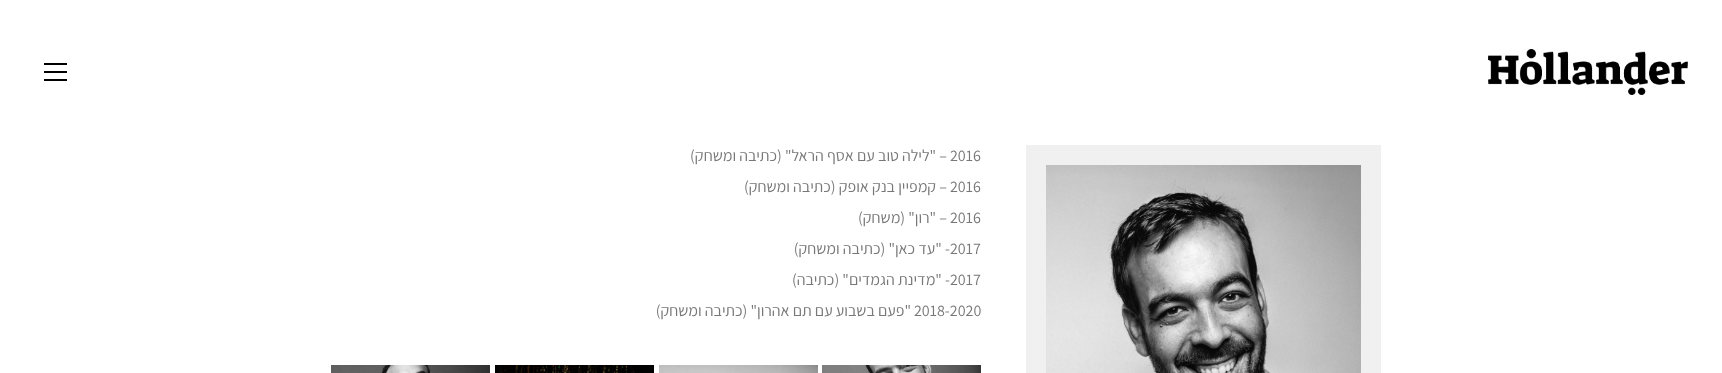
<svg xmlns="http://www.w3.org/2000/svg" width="1722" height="373">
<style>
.a{font:16px Assistant;fill:#777}
.b{font:16px Assistant;direction:rtl;fill:#777}
</style>
<rect width="100%" height="100%" fill="#fff"/>
<image href="1.png" x="1488" y="49" width="200" height="46"/>
<path fill="#000" d="M44 71h23v2H44z"/>
<path fill="#000" d="M44 63h23v2H44z"/>
<path fill="#000" d="M44 79h23v2H44z"/>
<path fill="#f0f0f0" d="M1026 145h355v228H1026z"/>
<image href="2.png" x="1046" y="165" width="315" height="208"/>
<image href="3.png" x="822" y="365" width="159" height="8"/>
<image href="4.png" x="659" y="365" width="159" height="8"/>
<image href="5.png" x="495" y="365" width="159" height="8"/>
<image href="6.png" x="331" y="365" width="159" height="8"/>
<text class="a" x="950" y="161">2016</text>
<text class="b" x="947" y="161">– "לילה טוב עם אסף הראל" (כתיבה ומשחק)</text>
<text class="a" x="950" y="192">2016</text>
<text class="b" x="947" y="192">– קמפיין בנק אופק (כתיבה ומשחק)</text>
<text class="a" x="950" y="223">2016</text>
<text class="b" x="947" y="223">– "רון" (משחק)</text>
<text class="a" x="950" y="254">2017</text>
<text class="b" x="950" y="254">- "עד כאן" (כתיבה ומשחק)</text>
<text class="a" x="950" y="285">2017</text>
<text class="b" x="950" y="285">- "מדינת הגמדים" (כתיבה)</text>
<text class="a" x="914" y="316">2018-2020</text>
<text class="b" x="911" y="316">"פעם בשבוע עם תם אהרון" (כתיבה ומשחק)</text>
</svg>
